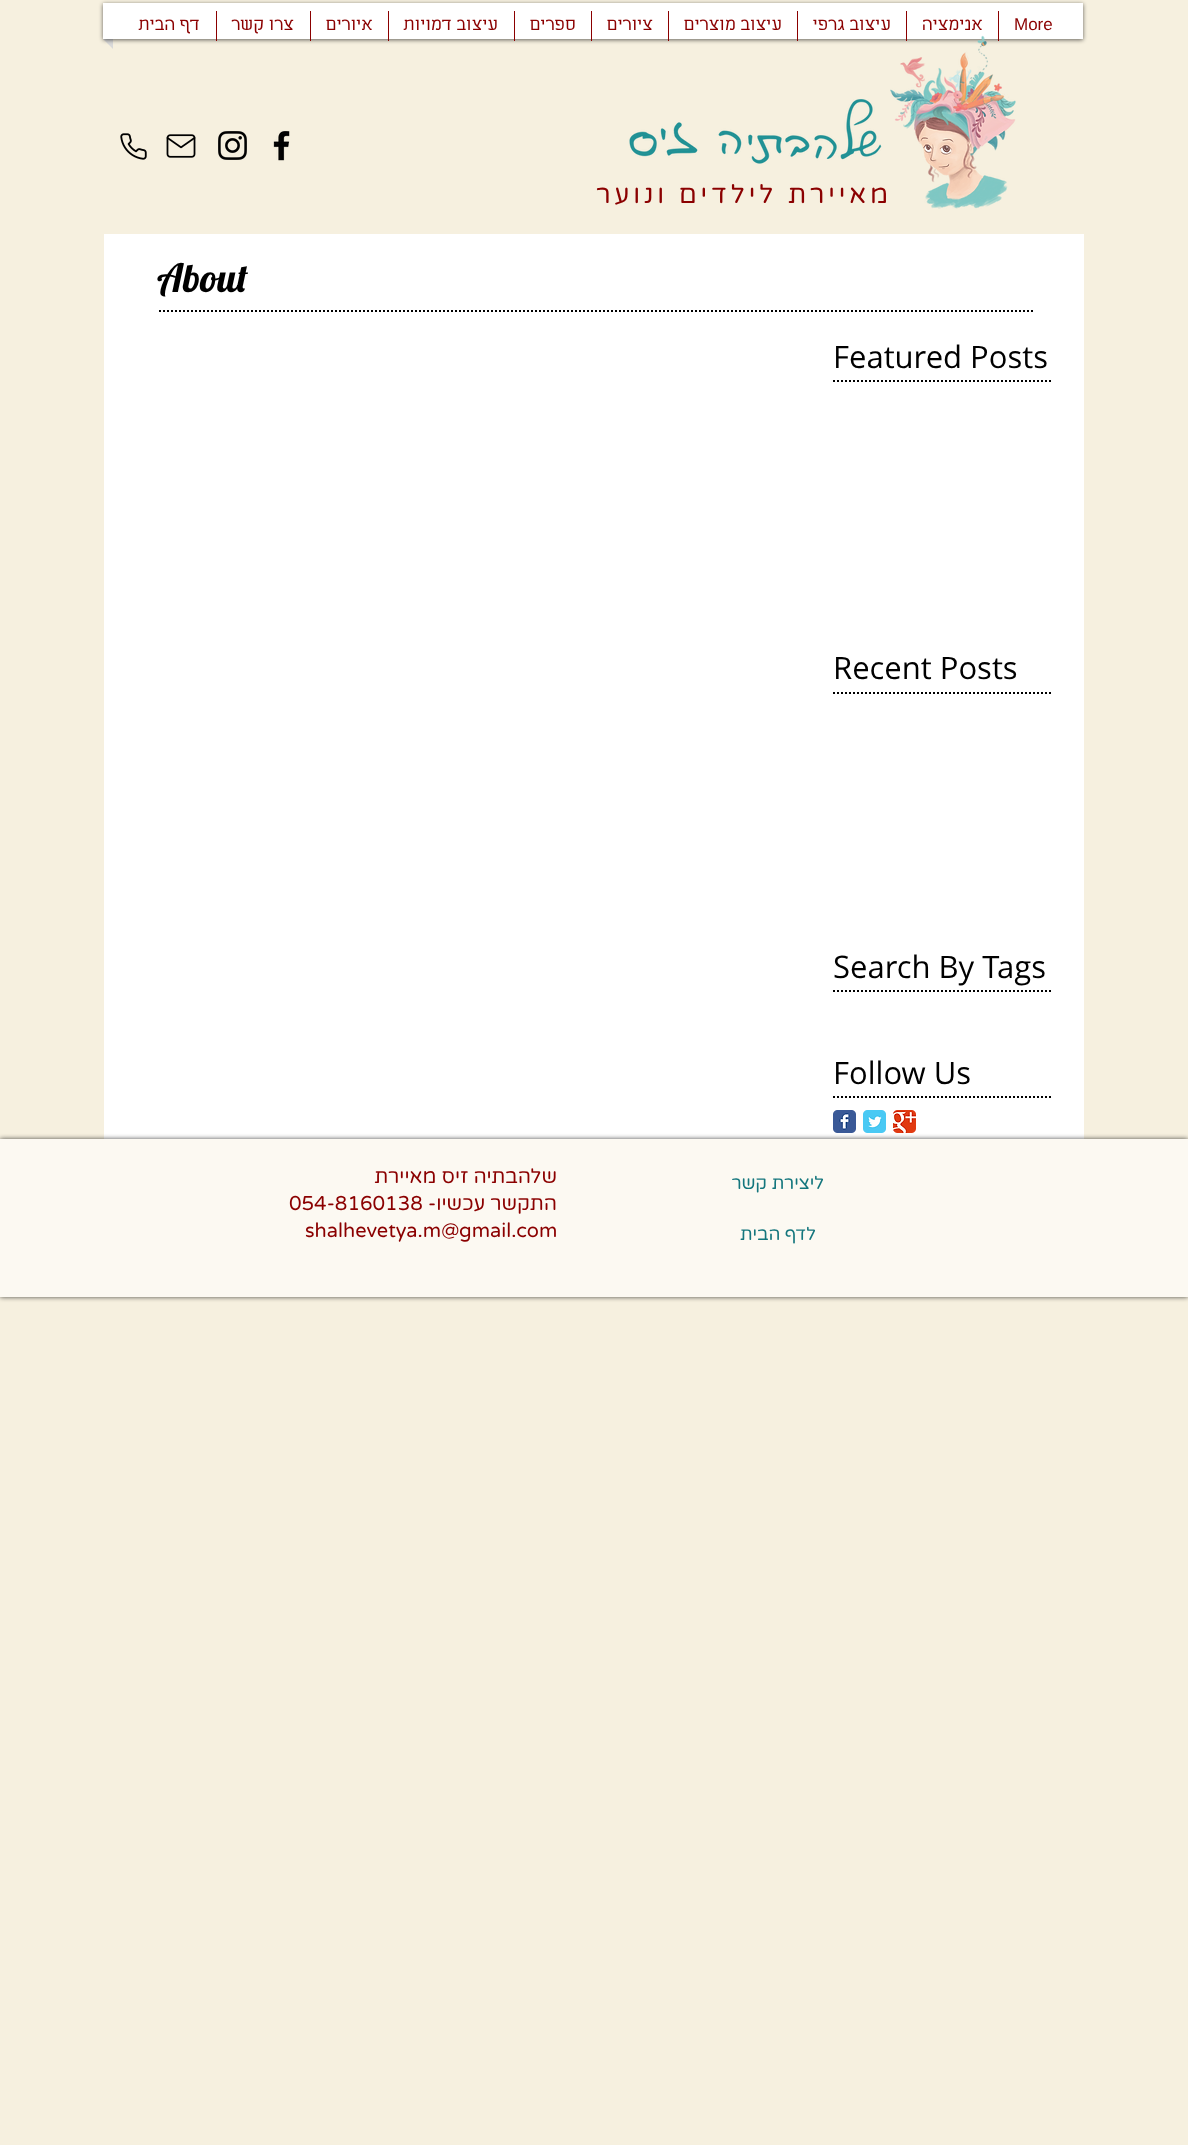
<svg xmlns="http://www.w3.org/2000/svg" width="1188" height="2145">
<style>
.a{font:17px Liberation Sans;fill:#8b0000}
.b{font:17px 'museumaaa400';direction:rtl;fill:#8b0000}
.c{font:26px Varela Round;letter-spacing:3.9px;direction:rtl;fill:#8b0000}
.d{font:39px Lobster;fill:#000}
.e{font:31px Open Sans;fill:#000}
.f{font:18px Varela Round;direction:rtl;fill:#14767d}
.g{font:20px Varela Round;direction:rtl;fill:#8b0000}
.h{font:20px Varela Round;fill:#8b0000}
</style>
<rect width="100%" height="100%" fill="#f6f0df"/>
<path fill="#d9d9d9" d="M103 39h10v10z"/>
<path fill="#00000099" filter="blur(2px)" d="M103 4h980v36H103z"/>
<path fill="#fff" d="M103 3h980v36H103z"/>
<path fill="#8b0000" d="M998 11h1v30H998z"/>
<path fill="#8b0000" d="M906 11h1v30H906z"/>
<path fill="#8b0000" d="M797 11h1v30H797z"/>
<path fill="#8b0000" d="M668 11h1v30H668z"/>
<path fill="#8b0000" d="M591 11h1v30H591z"/>
<path fill="#8b0000" d="M514 11h1v30H514z"/>
<path fill="#8b0000" d="M388 11h1v30H388z"/>
<path fill="#8b0000" d="M310 11h1v30H310z"/>
<path fill="#8b0000" d="M216 11h1v30H216z"/>
<image href="1.png" x="890" y="35" width="126" height="174"/>
<image href="2.png" x="629" y="99" width="253" height="65"/>
<image href="3.png" x="273" y="131" width="17" height="30"/>
<image href="4.png" x="218" y="131" width="29" height="29"/>
<image href="5.png" x="166" y="134" width="30" height="24"/>
<image href="6.png" x="120" y="133" width="27" height="27"/>
<path fill="#fff" d="M104 234h980v905H104z"/>
<path fill="none" stroke="#000" stroke-width="2" stroke-dasharray="2 2" d="M159 311h875"/>
<path fill="none" stroke="#000" stroke-width="2" stroke-dasharray="2 2" d="M833 381h220"/>
<path fill="none" stroke="#000" stroke-width="2" stroke-dasharray="2 2" d="M833 693h220"/>
<path fill="none" stroke="#000" stroke-width="2" stroke-dasharray="2 2" d="M833 991h220"/>
<path fill="none" stroke="#000" stroke-width="2" stroke-dasharray="2 2" d="M833 1097h220"/>
<image href="7.png" x="893" y="1110" width="23" height="23"/>
<image href="8.png" x="863" y="1110" width="23" height="23"/>
<image href="9.png" x="833" y="1110" width="23" height="23"/>
<path fill="#000000b3" filter="blur(2.5px)" d="M0 1139h1188v158H0z"/>
<path fill="#fcf9f2" d="M0 1139h1188v158H0z"/>
<text class="a" x="1014" y="30">More</text>
<text class="b" x="983" y="30">אנימציה</text>
<text class="b" x="891" y="30">עיצוב גרפי</text>
<text class="b" x="782" y="30">עיצוב מוצרים</text>
<text class="b" x="653" y="30">ציורים</text>
<text class="b" x="576" y="30">ספרים</text>
<text class="b" x="498" y="30">עיצוב דמויות</text>
<text class="b" x="373" y="30">איורים</text>
<text class="b" x="294" y="30">צרו קשר</text>
<text class="b" x="200" y="30">דף הבית</text>
<text class="c" x="892" y="203">מאיירת לילדים ונוער</text>
<text class="d" x="157" y="292">About</text>
<text class="e" x="833" y="368">Featured Posts</text>
<text class="e" x="833" y="679">Recent Posts</text>
<text class="e" x="833" y="978">Search By Tags</text>
<text class="e" x="833" y="1084">Follow Us</text>
<text class="f" x="824" y="1189">ליצירת קשר</text>
<text class="g" x="557" y="1183">שלהבתיה זיס מאיירת</text>
<text class="g" x="557" y="1210">התקשר עכשיו-</text>
<text class="h" x="289" y="1210">054-8160138</text>
<text class="h" x="305" y="1237">shalhevetya.m@gmail.com</text>
<text class="f" x="816" y="1240">לדף הבית</text>
</svg>
